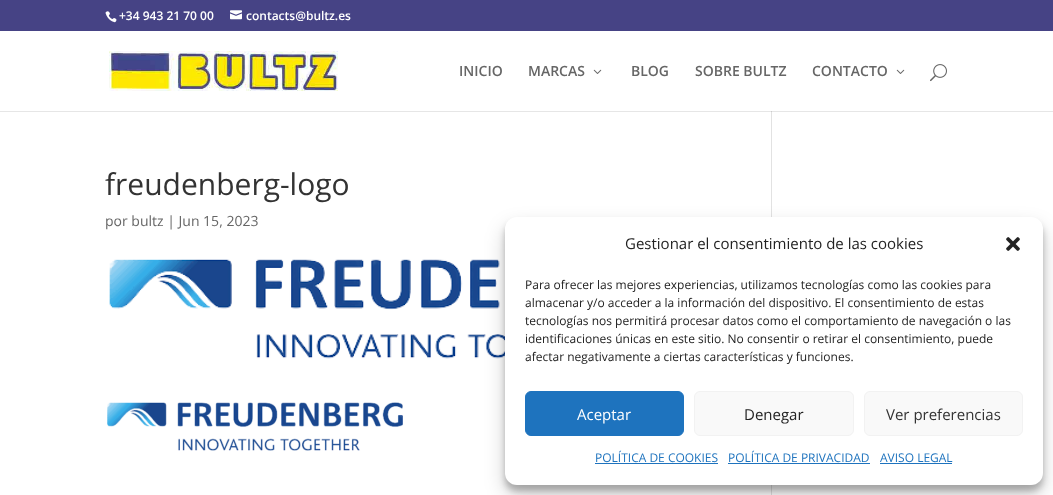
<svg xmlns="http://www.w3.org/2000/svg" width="1053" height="495">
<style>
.a{font:600 12px Open Sans;fill:#fff}
.b{font:600 14px Open Sans;fill:#666}
.c{font:30px Open Sans;fill:#333}
.d{font:14px Open Sans;fill:#666}
.e{font:15px Open Sans;fill:#222}
.f{font:12px Open Sans;fill:#222}
.g{font:15px Open Sans;fill:#fff}
.h{font:15px Open Sans;fill:#333}
.i{font:12px Open Sans;fill:#1e73be}
</style>
<rect width="100%" height="100%" fill="#fff"/>
<path fill="#e6e6e6" d="M0 111h1053v1H0z"/>
<path fill="#464385" d="M0 0h1053v31H0z"/>
<image href="1.png" x="105" y="11" width="12" height="12"/>
<image href="2.png" x="230" y="10" width="12" height="10"/>
<image href="3.png" x="109" y="51" width="229" height="40"/>
<image href="4.png" x="593" y="69" width="9" height="5"/>
<image href="4.png" x="896" y="69" width="9" height="5"/>
<image href="5.png" x="930" y="64" width="17" height="18"/>
<image href="6.png" x="109" y="259" width="396" height="100"/>
<image href="7.png" x="107" y="402" width="296" height="49"/>
<path fill="#e2e2e2" d="M771 111h1v384H771z"/>
<path fill="#cbcbcb" d="M771 111h1v1H771z"/>
<rect fill="#0000003b" filter="blur(3px)" x="505" y="223" width="538" height="268" rx="12"/>
<rect fill="#00000030" filter="blur(10px)" x="505" y="227" width="538" height="268" rx="12"/>
<rect fill="#fff" x="505" y="217" width="538" height="268" rx="12"/>
<image href="8.png" x="1006" y="237" width="14" height="14"/>
<rect fill="#1e73be" stroke="#1e73be" x="525.5" y="391.5" width="158" height="44" rx="5.5"/>
<rect fill="#f9f9f9" stroke="#f2f2f2" x="694.5" y="391.5" width="159" height="44" rx="5.5"/>
<rect fill="#f9f9f9" stroke="#f2f2f2" x="864.5" y="391.5" width="158" height="44" rx="5.5"/>
<path fill="#1e73be" d="M595 463h123v1H595z"/>
<path fill="#1e73be" d="M728 463h142v1H728z"/>
<path fill="#1e73be" d="M880 463h72v1H880z"/>
<text class="a" x="119" y="20">+34 943 21 70 00</text>
<text class="a" x="246" y="20">contacts@bultz.es</text>
<text class="b" x="459" y="76">INICIO</text>
<text class="b" x="528" y="76">MARCAS</text>
<text class="b" x="631" y="76">BLOG</text>
<text class="b" x="695" y="76">SOBRE BULTZ</text>
<text class="b" x="812" y="76">CONTACTO</text>
<text class="c" x="105" y="195">freudenberg-logo</text>
<text class="d" x="105" y="226">por bultz | Jun 15, 2023</text>
<text class="e" x="625" y="249">Gestionar el consentimiento de las cookies</text>
<text class="f" x="525" y="289">Para ofrecer las mejores experiencias, utilizamos tecnologías como las cookies para</text>
<text class="f" x="525" y="307">almacenar y/o acceder a la información del dispositivo. El consentimiento de estas</text>
<text class="f" x="525" y="325">tecnologías nos permitirá procesar datos como el comportamiento de navegación o las</text>
<text class="f" x="525" y="343">identificaciones únicas en este sitio. No consentir o retirar el consentimiento, puede</text>
<text class="f" x="525" y="361">afectar negativamente a ciertas características y funciones.</text>
<text class="g" x="577" y="420">Aceptar</text>
<text class="e" x="744" y="420">Denegar</text>
<text class="h" x="886" y="420">Ver preferencias</text>
<text class="i" x="595" y="462">POLÍTICA DE COOKIES</text>
<text class="i" x="728" y="462">POLÍTICA DE PRIVACIDAD</text>
<text class="i" x="880" y="462">AVISO LEGAL</text>
</svg>
